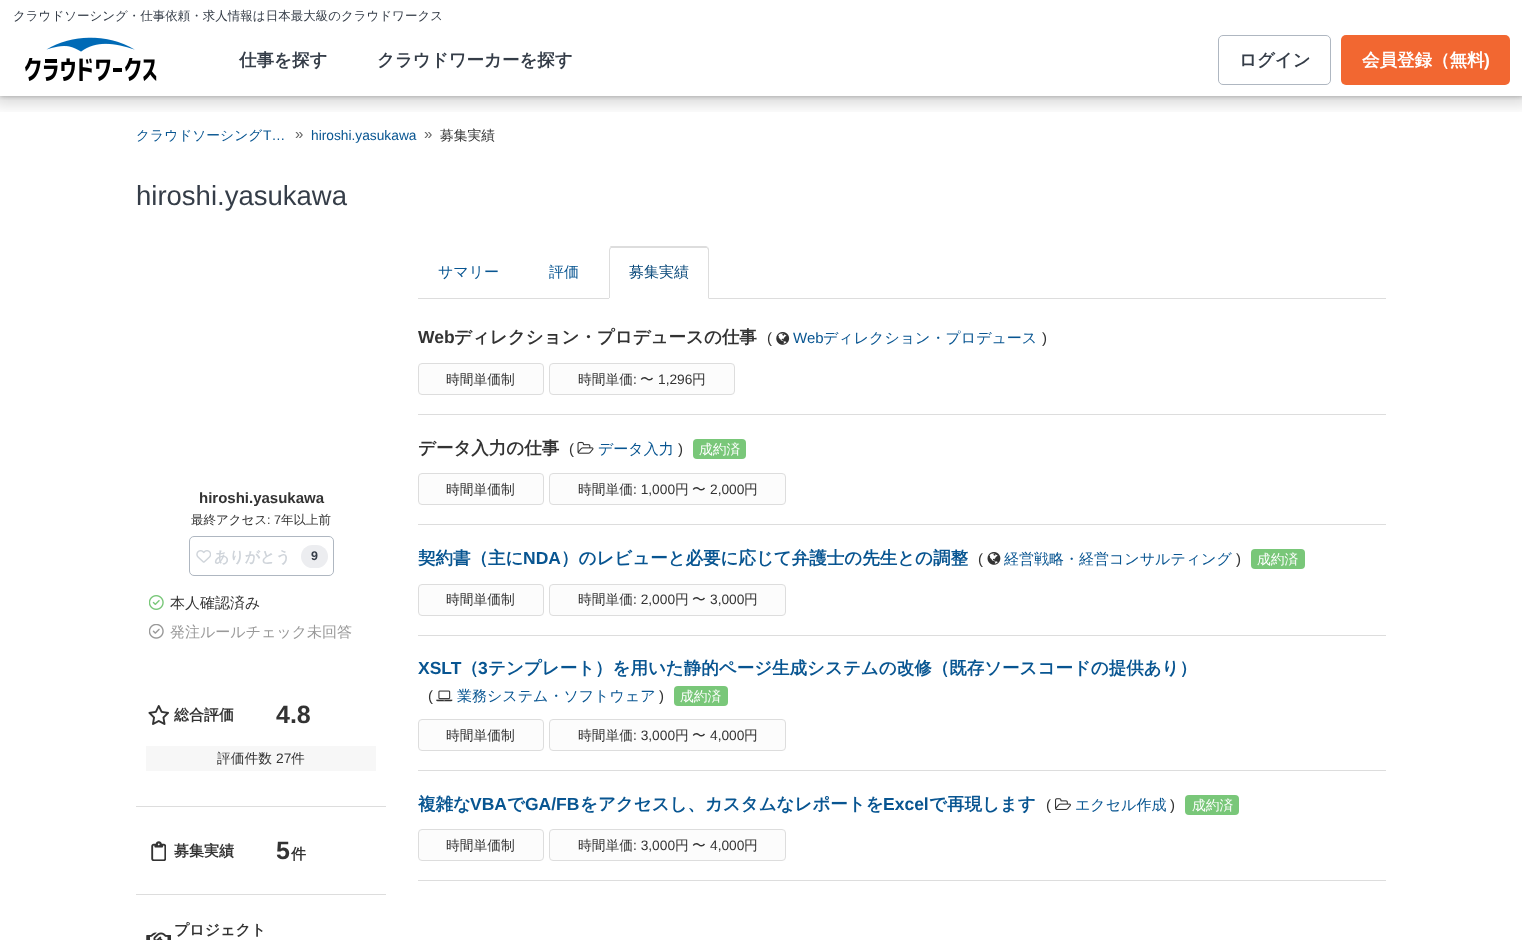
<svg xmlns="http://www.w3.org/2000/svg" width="1522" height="940">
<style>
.a{font:500 12.5px WenQuanYi Zen Hei;fill:#353d48}
.b{font:bold 17.5px WenQuanYi Zen Hei;fill:#353d48}
.c{font:bold 17.5px WenQuanYi Zen Hei;fill:#fff}
.d{font:bold 17.5px Liberation Sans;fill:#fff}
.e{font:500 13.75px WenQuanYi Zen Hei;fill:#085591}
.f{font:13.75px Liberation Sans;fill:#085591}
.g{font:15px Liberation Sans;fill:#666}
.h{font:500 13.75px WenQuanYi Zen Hei;fill:#333}
.i{font:27.5px Liberation Sans;fill:#353d48}
.j{font:bold 15px Liberation Sans;fill:#333}
.k{font:500 12.5px WenQuanYi Zen Hei;fill:#333}
.l{font:12.5px Liberation Sans;fill:#333}
.m{font:bold 15px WenQuanYi Zen Hei;fill:#cfd4da}
.n{font:bold 12.5px Liberation Sans;fill:#353d48}
.o{font:500 15px WenQuanYi Zen Hei;fill:#333}
.p{font:500 15px WenQuanYi Zen Hei;fill:#999}
.q{font:bold 15px WenQuanYi Zen Hei;fill:#333}
.r{font:bold 25px Liberation Sans;fill:#333}
.s{font:13.75px Liberation Sans;fill:#333}
.t{font:500 15px WenQuanYi Zen Hei;fill:#085591}
.u{font:500 15px WenQuanYi Zen Hei;fill:#074779}
.v{font:bold 17.5px Liberation Sans;fill:#333}
.w{font:bold 17.5px WenQuanYi Zen Hei;fill:#333}
.x{font:15px Liberation Sans;fill:#333}
.y{font:15px Liberation Sans;fill:#085591}
.z{font:500 13.75px WenQuanYi Zen Hei;fill:#fff}
.a1{font:bold 17.5px WenQuanYi Zen Hei;fill:#085591}
.b1{font:bold 17.5px Liberation Sans;fill:#085591}
</style>
<defs>
<clipPath id="clip1"><path d="M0 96h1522v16H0z"/></clipPath>
<clipPath id="clip2"><path d="M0 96h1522v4H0z"/></clipPath>
<clipPath id="clip3"><path d="M411 246h975v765H411z"/></clipPath>
</defs>
<rect width="100%" height="100%" fill="#fff"/>
<g clip-path="url(#clip1)">
<path fill="#00000026" filter="blur(7.5px)" d="M-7 -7h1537v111H-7z"/>
</g>
<g clip-path="url(#clip2)">
<path fill="#0000004d" filter="blur(2.5px)" d="M0 0h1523v96H0z"/>
</g>
<image href="1.png" x="25" y="37" width="132" height="44"/>
<rect fill="none" stroke="#afb7c1" x="1218.5" y="35.5" width="112" height="49" rx="4.5"/>
<rect fill="#f26731" x="1341" y="35" width="169" height="50" rx="5"/>
<rect fill="none" stroke="#afb7c1" x="189.5" y="536.5" width="144" height="39" rx="4.5"/>
<image href="2.png" x="196" y="550" width="15" height="13"/>
<rect fill="#ecedf0" x="301" y="545" width="27" height="23" rx="11.5"/>
<image href="3.png" x="149" y="595" width="15" height="15"/>
<image href="4.png" x="149" y="624" width="15" height="15"/>
<path fill="#ddd" d="M136 806h250v1H136z"/>
<image href="5.png" x="148" y="705" width="21" height="20"/>
<path fill="#f7f7f7" d="M146 746h230v25H146z"/>
<path fill="#ddd" d="M136 894h250v1H136z"/>
<image href="6.png" x="151" y="841" width="15" height="20"/>
<image href="7.png" x="146" y="932" width="25" height="8"/>
<path fill="#ddd" d="M418 298h968v1H418z"/>
<path fill="#fff" d="M613 246h92c2 0 4 2 4 4v49h-100v-49c0-2 2-4 4-4z"/>
<g clip-path="url(#clip3)">
<path fill="#ddd" d="M612 248h-1l-1-1c3-5 11-1 17-1h79l2 1l-1 1h-2z"/>
</g>
<path fill="#ddd" d="M708 247l1 2v50l-1-1v-48l-1-2z"/>
<path fill="#ddd" d="M609 298v-48l1-3l1 1l-1 2v48z"/>
<path fill="#ddd" d="M418 414h968v1H418z"/>
<image href="8.png" x="776" y="332" width="14" height="13"/>
<rect fill="#fcfcfc" stroke="#ddd" x="418.5" y="363.5" width="125" height="31" rx="3.5"/>
<rect fill="#fcfcfc" stroke="#ddd" x="549.5" y="363.5" width="185" height="31" rx="3.5"/>
<path fill="#ddd" d="M418 524h968v1H418z"/>
<image href="9.png" x="577" y="441" width="17" height="13"/>
<rect fill="#79c779" x="693" y="439" width="53" height="20" rx="4"/>
<rect fill="#fcfcfc" stroke="#ddd" x="418.5" y="473.5" width="125" height="31" rx="3.5"/>
<rect fill="#fcfcfc" stroke="#ddd" x="549.5" y="473.5" width="236" height="31" rx="3.5"/>
<path fill="#ddd" d="M418 635h968v1H418z"/>
<image href="10.png" x="987" y="552" width="14" height="13"/>
<rect fill="#79c779" x="1251" y="549" width="54" height="20" rx="4"/>
<rect fill="#fcfcfc" stroke="#ddd" x="418.5" y="584.5" width="125" height="31" rx="3.5"/>
<rect fill="#fcfcfc" stroke="#ddd" x="549.5" y="584.5" width="236" height="31" rx="3.5"/>
<path fill="#ddd" d="M418 770h968v1H418z"/>
<image href="11.png" x="436" y="690" width="17" height="12"/>
<rect fill="#79c779" x="674" y="686" width="54" height="20" rx="4"/>
<rect fill="#fcfcfc" stroke="#ddd" x="418.5" y="719.5" width="125" height="31" rx="3.5"/>
<rect fill="#fcfcfc" stroke="#ddd" x="549.5" y="719.5" width="236" height="31" rx="3.5"/>
<path fill="#ddd" d="M418 880h968v1H418z"/>
<image href="12.png" x="1055" y="798" width="16" height="12"/>
<rect fill="#79c779" x="1185" y="795" width="54" height="20" rx="4"/>
<rect fill="#fcfcfc" stroke="#ddd" x="418.5" y="829.5" width="125" height="31" rx="3.5"/>
<rect fill="#fcfcfc" stroke="#ddd" x="549.5" y="829.5" width="236" height="31" rx="3.5"/>
<text class="a" x="13" y="20">クラウドソーシング・仕事依頼・求人情報は日本最大級のクラウドワークス</text>
<text class="b" x="239" y="66">仕事を探す</text>
<text class="b" x="377" y="66">クラウドワーカーを探す</text>
<text class="b" x="1239" y="66">ログイン</text>
<text class="c" x="1362" y="66">会員登録（無料</text>
<text class="d" x="1484" y="66">)</text>
<text class="e" x="136" y="140">クラウドソーシング</text>
<text class="f" x="263" y="140">T…</text>
<text class="g" x="295" y="139">»</text>
<text class="f" x="311" y="140">hiroshi.yasukawa</text>
<text class="g" x="424" y="139">»</text>
<text class="h" x="440" y="140">募集実績</text>
<text class="i" x="136" y="205">hiroshi.yasukawa</text>
<text class="j" x="199" y="503">hiroshi.yasukawa</text>
<text class="k" x="191" y="524">最終アクセス</text>
<text class="l" x="267" y="524">: 7</text>
<text class="k" x="281" y="524">年以上前</text>
<text class="m" x="214" y="562">ありがとう</text>
<text class="n" x="311" y="560">9</text>
<text class="o" x="170" y="608">本人確認済み</text>
<text class="p" x="170" y="637">発注ルールチェック未回答</text>
<text class="q" x="174" y="720">総合評価</text>
<text class="r" x="276" y="723">4.8</text>
<text class="h" x="217" y="763">評価件数</text>
<text class="s" x="276" y="763">27</text>
<text class="h" x="291" y="763">件</text>
<text class="q" x="174" y="856">募集実績</text>
<text class="r" x="276" y="859">5</text>
<text class="q" x="291" y="859">件</text>
<text class="q" x="174" y="935">プロジェクト</text>
<text class="t" x="438" y="277">サマリー</text>
<text class="t" x="549" y="277">評価</text>
<text class="u" x="629" y="277">募集実績</text>
<text class="v" x="418" y="343">Web</text>
<text class="w" x="454" y="343">ディレクション・プロデュースの仕事</text>
<text class="x" x="767" y="343">(</text>
<text class="y" x="793" y="343">Web</text>
<text class="t" x="823" y="343">ディレクション・プロデュース</text>
<text class="x" x="1042" y="343">)</text>
<text class="h" x="446" y="384">時間単価制</text>
<text class="h" x="578" y="384">時間単価</text>
<text class="s" x="633" y="384">:</text>
<text class="h" x="640" y="384">〜</text>
<text class="s" x="658" y="384">1,296</text>
<text class="h" x="692" y="384">円</text>
<text class="w" x="418" y="454">データ入力の仕事</text>
<text class="x" x="569" y="454">(</text>
<text class="t" x="598" y="454">データ入力</text>
<text class="x" x="678" y="454">)</text>
<text class="z" x="699" y="454">成約済</text>
<text class="h" x="446" y="494">時間単価制</text>
<text class="h" x="578" y="494">時間単価</text>
<text class="s" x="633" y="494">: 1,000</text>
<text class="h" x="675" y="494">円</text>
<text class="h" x="692" y="494">〜</text>
<text class="s" x="710" y="494">2,000</text>
<text class="h" x="744" y="494">円</text>
<text class="a1" x="418" y="564">契約書（主に</text>
<text class="b1" x="523" y="564">NDA</text>
<text class="a1" x="561" y="564">）のレビューと必要に応じて弁護士の先生との調整</text>
<text class="x" x="978" y="564">(</text>
<text class="t" x="1004" y="564">経営戦略・経営コンサルティング</text>
<text class="x" x="1236" y="564">)</text>
<text class="z" x="1257" y="564">成約済</text>
<text class="h" x="446" y="604">時間単価制</text>
<text class="h" x="578" y="604">時間単価</text>
<text class="s" x="633" y="604">: 2,000</text>
<text class="h" x="675" y="604">円</text>
<text class="h" x="692" y="604">〜</text>
<text class="s" x="710" y="604">3,000</text>
<text class="h" x="744" y="604">円</text>
<text class="b1" x="418" y="674">XSLT</text>
<text class="a1" x="461" y="674">（</text>
<text class="b1" x="478" y="674">3</text>
<text class="a1" x="488" y="674">テンプレート）を用いた静的ページ生成システムの改修（既存ソースコードの提供あり）</text>
<text class="x" x="428" y="701">(</text>
<text class="t" x="457" y="701">業務システム・ソフトウェア</text>
<text class="x" x="659" y="701">)</text>
<text class="z" x="680" y="701">成約済</text>
<text class="h" x="446" y="740">時間単価制</text>
<text class="h" x="578" y="740">時間単価</text>
<text class="s" x="633" y="740">: 3,000</text>
<text class="h" x="675" y="740">円</text>
<text class="h" x="692" y="740">〜</text>
<text class="s" x="710" y="740">4,000</text>
<text class="h" x="744" y="740">円</text>
<text class="a1" x="418" y="810">複雑な</text>
<text class="b1" x="470" y="810">VBA</text>
<text class="a1" x="507" y="810">で</text>
<text class="b1" x="525" y="810">GA/FB</text>
<text class="a1" x="580" y="810">をアクセスし、カスタムなレポートを</text>
<text class="b1" x="883" y="810">Excel</text>
<text class="a1" x="929" y="810">で再現します</text>
<text class="x" x="1046" y="810">(</text>
<text class="t" x="1075" y="810">エクセル作成</text>
<text class="x" x="1170" y="810">)</text>
<text class="z" x="1192" y="810">成約済</text>
<text class="h" x="446" y="850">時間単価制</text>
<text class="h" x="578" y="850">時間単価</text>
<text class="s" x="633" y="850">: 3,000</text>
<text class="h" x="675" y="850">円</text>
<text class="h" x="692" y="850">〜</text>
<text class="s" x="710" y="850">4,000</text>
<text class="h" x="744" y="850">円</text>
</svg>
